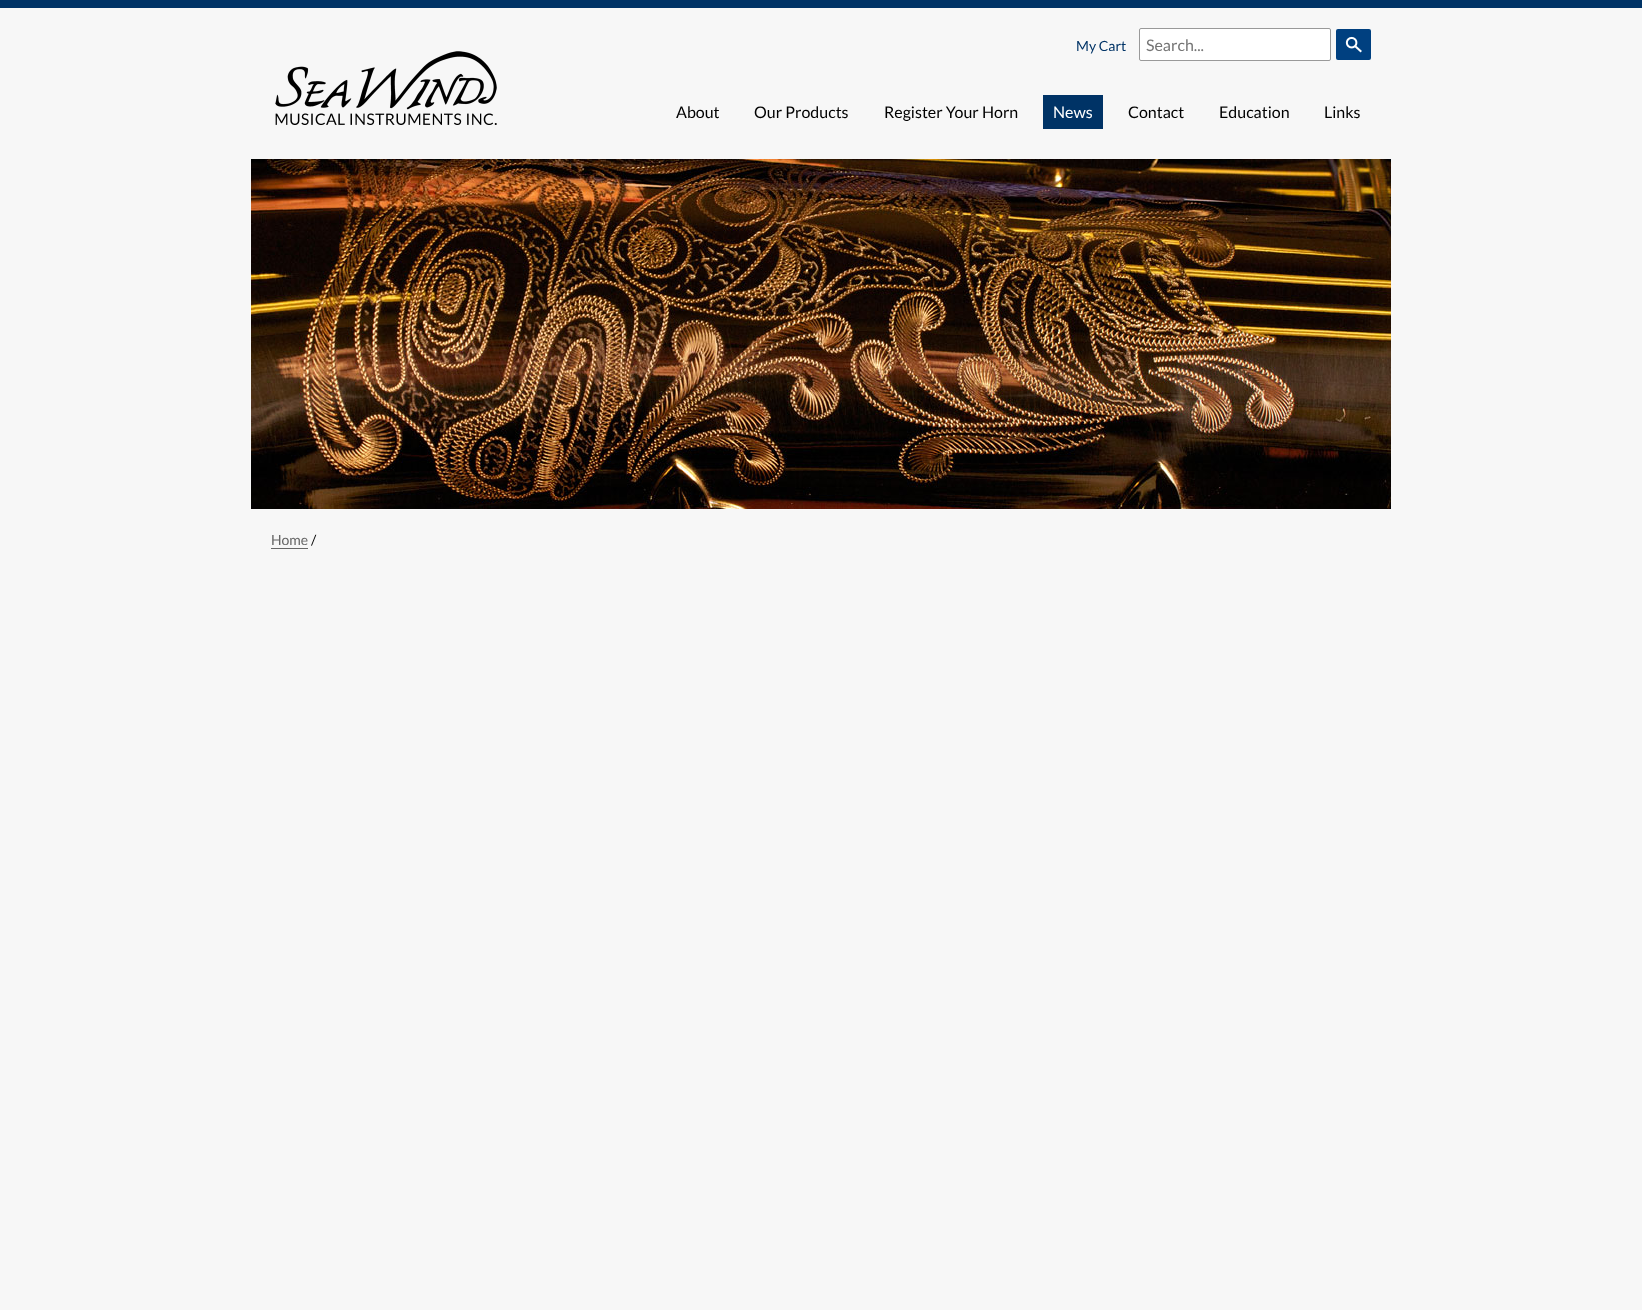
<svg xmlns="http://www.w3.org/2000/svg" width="1642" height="1310">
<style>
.a{font:14px Lato;fill:#036}
.b{font:16px Lato;fill:#757575}
.c{font:16px Lato;fill:#000}
.d{font:16px Lato;fill:#fff}
.e{font:14px Lato;fill:#666}
.f{font:14px Lato;fill:#000}
</style>
<rect width="100%" height="100%" fill="#f7f7f7"/>
<path fill="#036" d="M0 0h1642v8H0z"/>
<rect fill="#fff" stroke="#999" x="1139.5" y="28.5" width="191" height="32" rx="1.5"/>
<rect fill="#004080" x="1336" y="29" width="35" height="31" rx="2"/>
<image href="1.png" x="1345" y="36" width="17" height="17"/>
<image href="2.png" x="275" y="51" width="222" height="74"/>
<path fill="#036" d="M1043 95h60v34H1043z"/>
<image href="3.png" x="251" y="159" width="1140" height="350"/>
<path fill="#666" d="M271 548h37v1H271z"/>
<text class="a" x="1076" y="51">My Cart</text>
<text class="b" x="1146" y="51">Search...</text>
<text class="c" x="676" y="118">About</text>
<text class="c" x="754" y="118">Our Products</text>
<text class="c" x="884" y="118">Register Your Horn</text>
<text class="d" x="1053" y="118">News</text>
<text class="c" x="1128" y="118">Contact</text>
<text class="c" x="1219" y="118">Education</text>
<text class="c" x="1324" y="118">Links</text>
<text class="e" x="271" y="545">Home</text>
<text class="f" x="311" y="545">/</text>
</svg>
